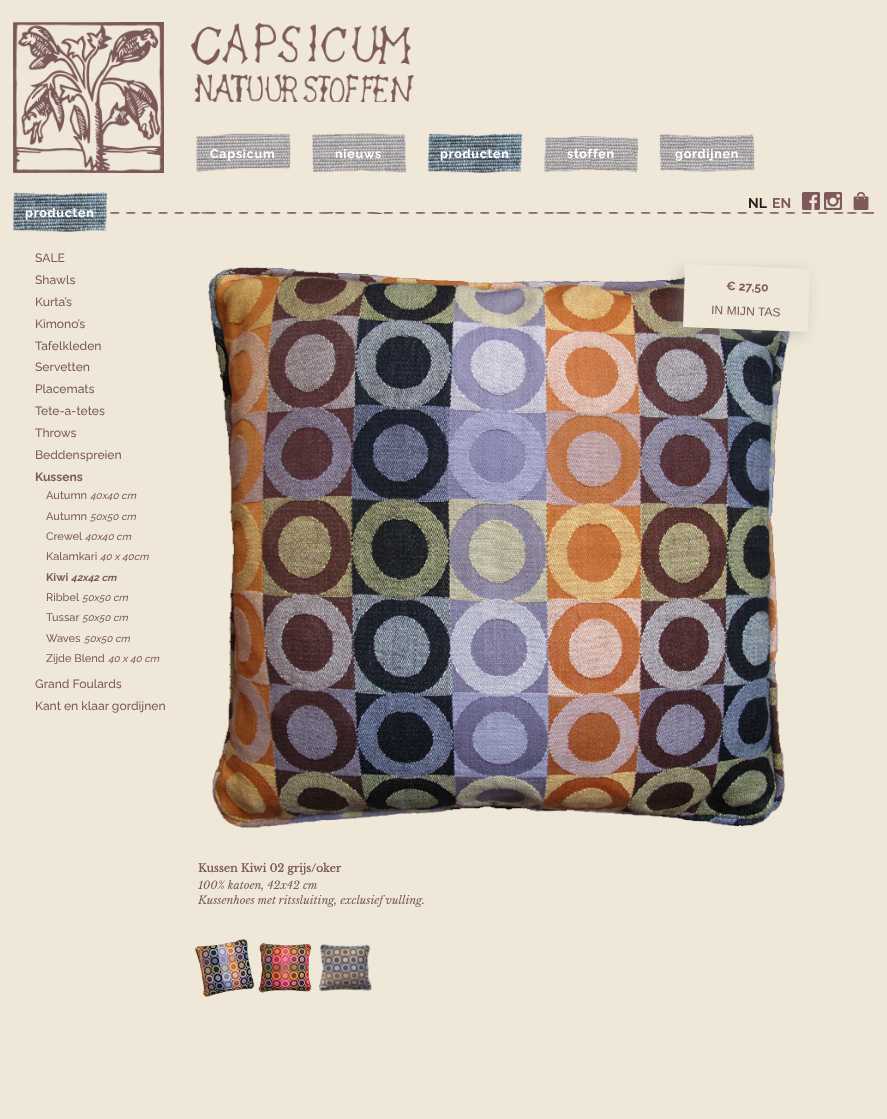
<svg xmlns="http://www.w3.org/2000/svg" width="887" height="1119">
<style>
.a{font:bold 12.5px Raleway;letter-spacing:0.75px;fill:#fff}
.b{font:bold 14px Raleway;fill:#2b1d1d}
.c{font:bold 14px Raleway;fill:#7d5959}
.d{font:500 12.1px Raleway;fill:#7d5959}
.e{font:bold 12.1px Raleway;fill:#7d5959}
.f{font:500 11px Raleway;fill:#7d5959}
.g{font:italic 500 10px Raleway;fill:#7d5959}
.h{font:bold 11px Raleway;fill:#7d5959}
.i{font:italic bold 10px Raleway;fill:#7d5959}
.j{font:12.1px Liberation Sans;fill:#7d5959}
.k{font:bold 11px Libre Baskerville;fill:#7d5959}
.l{font:italic 11px Libre Baskerville;fill:#7d5959}
</style>
<rect width="100%" height="100%" fill="#efe8d8"/>
<image href="1.png" x="13" y="22" width="151" height="151"/>
<image href="2.png" x="191" y="22" width="223" height="80"/>
<image href="3.png" x="196" y="133" width="95" height="39"/>
<image href="4.png" x="312" y="133" width="95" height="40"/>
<image href="5.png" x="427" y="133" width="96" height="40"/>
<image href="6.png" x="544" y="136" width="95" height="37"/>
<image href="7.png" x="659" y="134" width="96" height="38"/>
<image href="8.png" x="13" y="211" width="861" height="3"/>
<image href="9.png" x="802" y="192" width="18" height="18"/>
<image href="10.png" x="824" y="192" width="18" height="18"/>
<image href="11.png" x="853" y="192" width="16" height="18"/>
<image href="12.png" x="12" y="192" width="96" height="40"/>
<image href="13.png" x="208" y="267" width="582" height="561"/>
<path fill="#8f8f8f80" filter="blur(7.5px)" d="M679 272h125v62H679z"/>
<path fill="#efe8d8" d="M685 264l125 5l-2 63l-125-5z"/>
<image href="14.png" x="195" y="939" width="60" height="58"/>
<image href="15.png" x="258" y="943" width="54" height="50"/>
<image href="16.png" x="319" y="944" width="53" height="48"/>
<text class="a" x="210" y="158">Capsicum</text>
<text class="a" x="335" y="158">nieuws</text>
<text class="a" x="440" y="158">producten</text>
<text class="a" x="567" y="158">stoffen</text>
<text class="a" x="675" y="158">gordijnen</text>
<text class="b" x="748" y="208">NL</text>
<text class="c" x="772" y="208">EN</text>
<text class="a" x="25" y="217">producten</text>
<text class="d" x="35" y="262">SALE</text>
<text class="d" x="35" y="284">Shawls</text>
<text class="d" x="35" y="306">Kurta’s</text>
<text class="d" x="35" y="328">Kimono’s</text>
<text class="d" x="35" y="350">Tafelkleden</text>
<text class="d" x="35" y="371">Servetten</text>
<text class="d" x="35" y="393">Placemats</text>
<text class="d" x="35" y="415">Tete-a-tetes</text>
<text class="d" x="35" y="437">Throws</text>
<text class="d" x="35" y="459">Beddenspreien</text>
<text class="e" x="35" y="481">Kussens</text>
<text class="f" x="46" y="499">Autumn</text>
<text class="g" x="90" y="499">40x40 cm</text>
<text class="f" x="46" y="520">Autumn</text>
<text class="g" x="90" y="520">50x50 cm</text>
<text class="f" x="46" y="540">Crewel</text>
<text class="g" x="85" y="540">40x40 cm</text>
<text class="f" x="46" y="560">Kalamkari</text>
<text class="g" x="100" y="560">40 x 40cm</text>
<text class="h" x="46" y="581">Kiwi</text>
<text class="i" x="71" y="581">42x42 cm</text>
<text class="f" x="46" y="601">Ribbel</text>
<text class="g" x="82" y="601">50x50 cm</text>
<text class="f" x="46" y="621">Tussar</text>
<text class="g" x="82" y="621">50x50 cm</text>
<text class="f" x="46" y="642">Waves</text>
<text class="g" x="84" y="642">50x50 cm</text>
<text class="f" x="46" y="662">Zijde Blend</text>
<text class="g" x="108" y="662">40 x 40 cm</text>
<text class="d" x="35" y="688">Grand Foulards</text>
<text class="d" x="35" y="710">Kant en klaar gordijnen</text>
<text class="e" x="726" y="290" transform="rotate(2 726 290)">€ 27,50</text>
<text class="j" x="711" y="314" transform="rotate(2 711 314)">IN MIJN TAS</text>
<text class="k" x="198" y="872">Kussen Kiwi 02 grijs/oker</text>
<text class="l" x="198" y="889">100% katoen, 42x42 cm</text>
<text class="l" x="198" y="904">Kussenhoes met ritssluiting, exclusief vulling.</text>
</svg>
